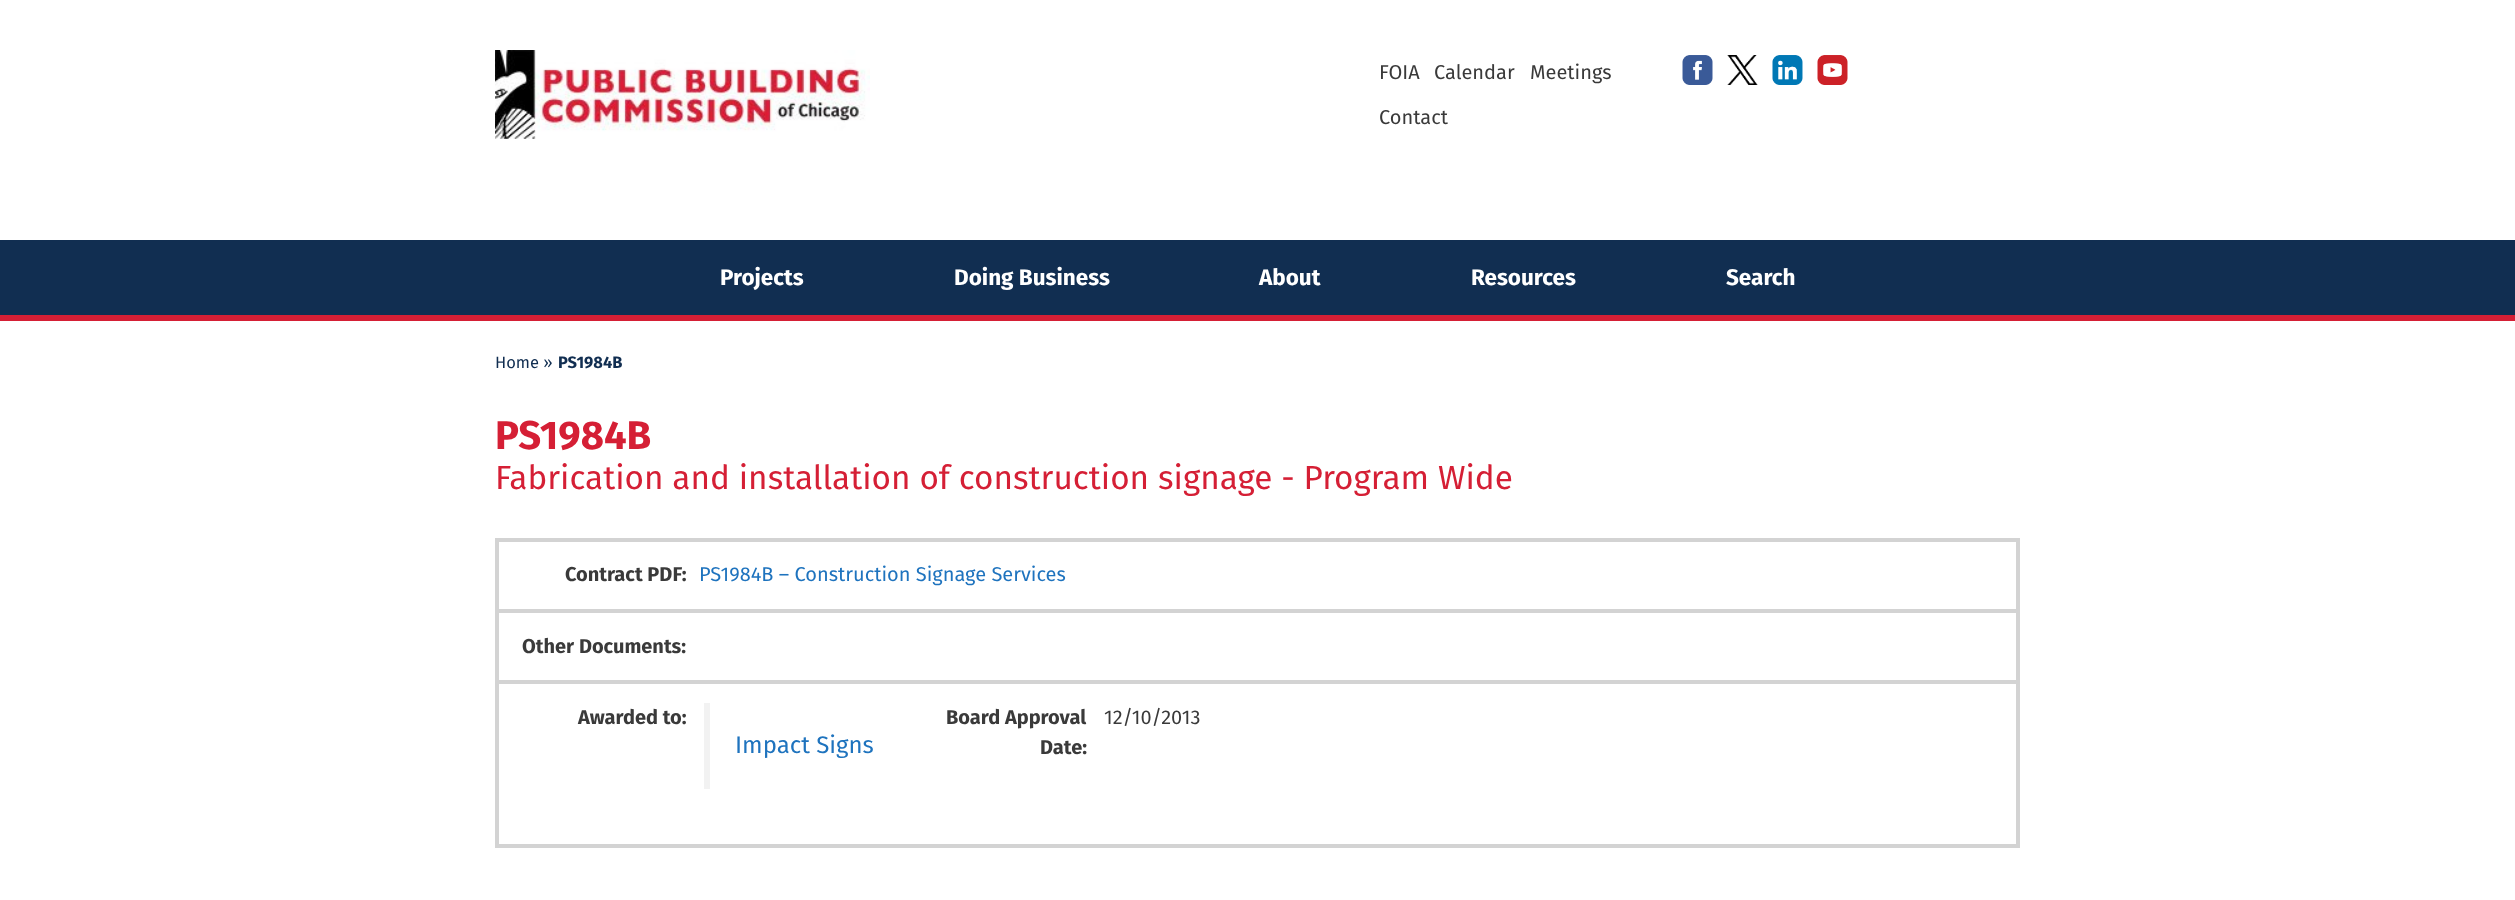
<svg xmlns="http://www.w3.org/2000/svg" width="2515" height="900">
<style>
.a{font:20px Fira Sans;fill:#3a3a3a}
.b{font:bold 22.5px Fira Sans;fill:#fff}
.c{font:16.5px Fira Sans;fill:#112e51}
.d{font:bold 16.5px Fira Sans;fill:#112e51}
.e{font:bold 40px Fira Sans;fill:#d51f35}
.f{font:33.3px Fira Sans;fill:#d51f35}
.g{font:bold 20px Fira Sans;fill:#3a3a3a}
.h{font:20px Fira Sans;fill:#1e73be}
.i{font:24px Fira Sans;fill:#1e73be}
</style>
<rect width="100%" height="100%" fill="#fff"/>
<image href="1.png" x="495" y="50" width="375" height="89"/>
<image href="2.png" x="1682" y="55" width="31" height="30"/>
<image href="3.png" x="1727" y="55" width="31" height="30"/>
<image href="4.png" x="1772" y="55" width="31" height="30"/>
<image href="5.png" x="1817" y="55" width="31" height="30"/>
<path fill="#112e51" d="M0 240h2515v75H0z"/>
<path fill="#d51f35" d="M0 315h2515v6H0z"/>
<path fill="#d3d3d3" d="M495 538h1525v4H495z"/>
<path fill="#d3d3d3" d="M2016 538h4v71H2016z"/>
<path fill="#d3d3d3" d="M495 538h4v71H495z"/>
<path fill="#d3d3d3" d="M495 609h1525v4H495z"/>
<path fill="#d3d3d3" d="M2016 609h4v71H2016z"/>
<path fill="#d3d3d3" d="M495 609h4v71H495z"/>
<path fill="none" stroke="#d3d3d3" stroke-width="4" d="M497 682h1521v164H497z"/>
<path fill="#f2f2f2" d="M704 703h6v86H704z"/>
<text class="a" x="1379" y="79">FOIA</text>
<text class="a" x="1434" y="79">Calendar</text>
<text class="a" x="1530" y="79">Meetings</text>
<text class="a" x="1379" y="124">Contact</text>
<text class="b" x="720" y="285">Projects</text>
<text class="b" x="954" y="285">Doing Business</text>
<text class="b" x="1259" y="285">About</text>
<text class="b" x="1471" y="285">Resources</text>
<text class="b" x="1726" y="285">Search</text>
<text class="c" x="495" y="368">Home »</text>
<text class="d" x="558" y="368">PS1984B</text>
<text class="e" x="495" y="449">PS1984B</text>
<text class="f" x="495" y="489">Fabrication and installation of construction signage - Program Wide</text>
<text class="g" x="565" y="581">Contract PDF:</text>
<text class="h" x="699" y="581">PS1984B – Construction Signage Services</text>
<text class="g" x="522" y="653">Other Documents:</text>
<text class="g" x="578" y="724">Awarded to:</text>
<text class="i" x="735" y="753">Impact Signs</text>
<text class="g" x="946" y="724">Board Approval</text>
<text class="g" x="1040" y="754">Date:</text>
<text class="a" x="1104" y="724">12/10/2013</text>
</svg>
